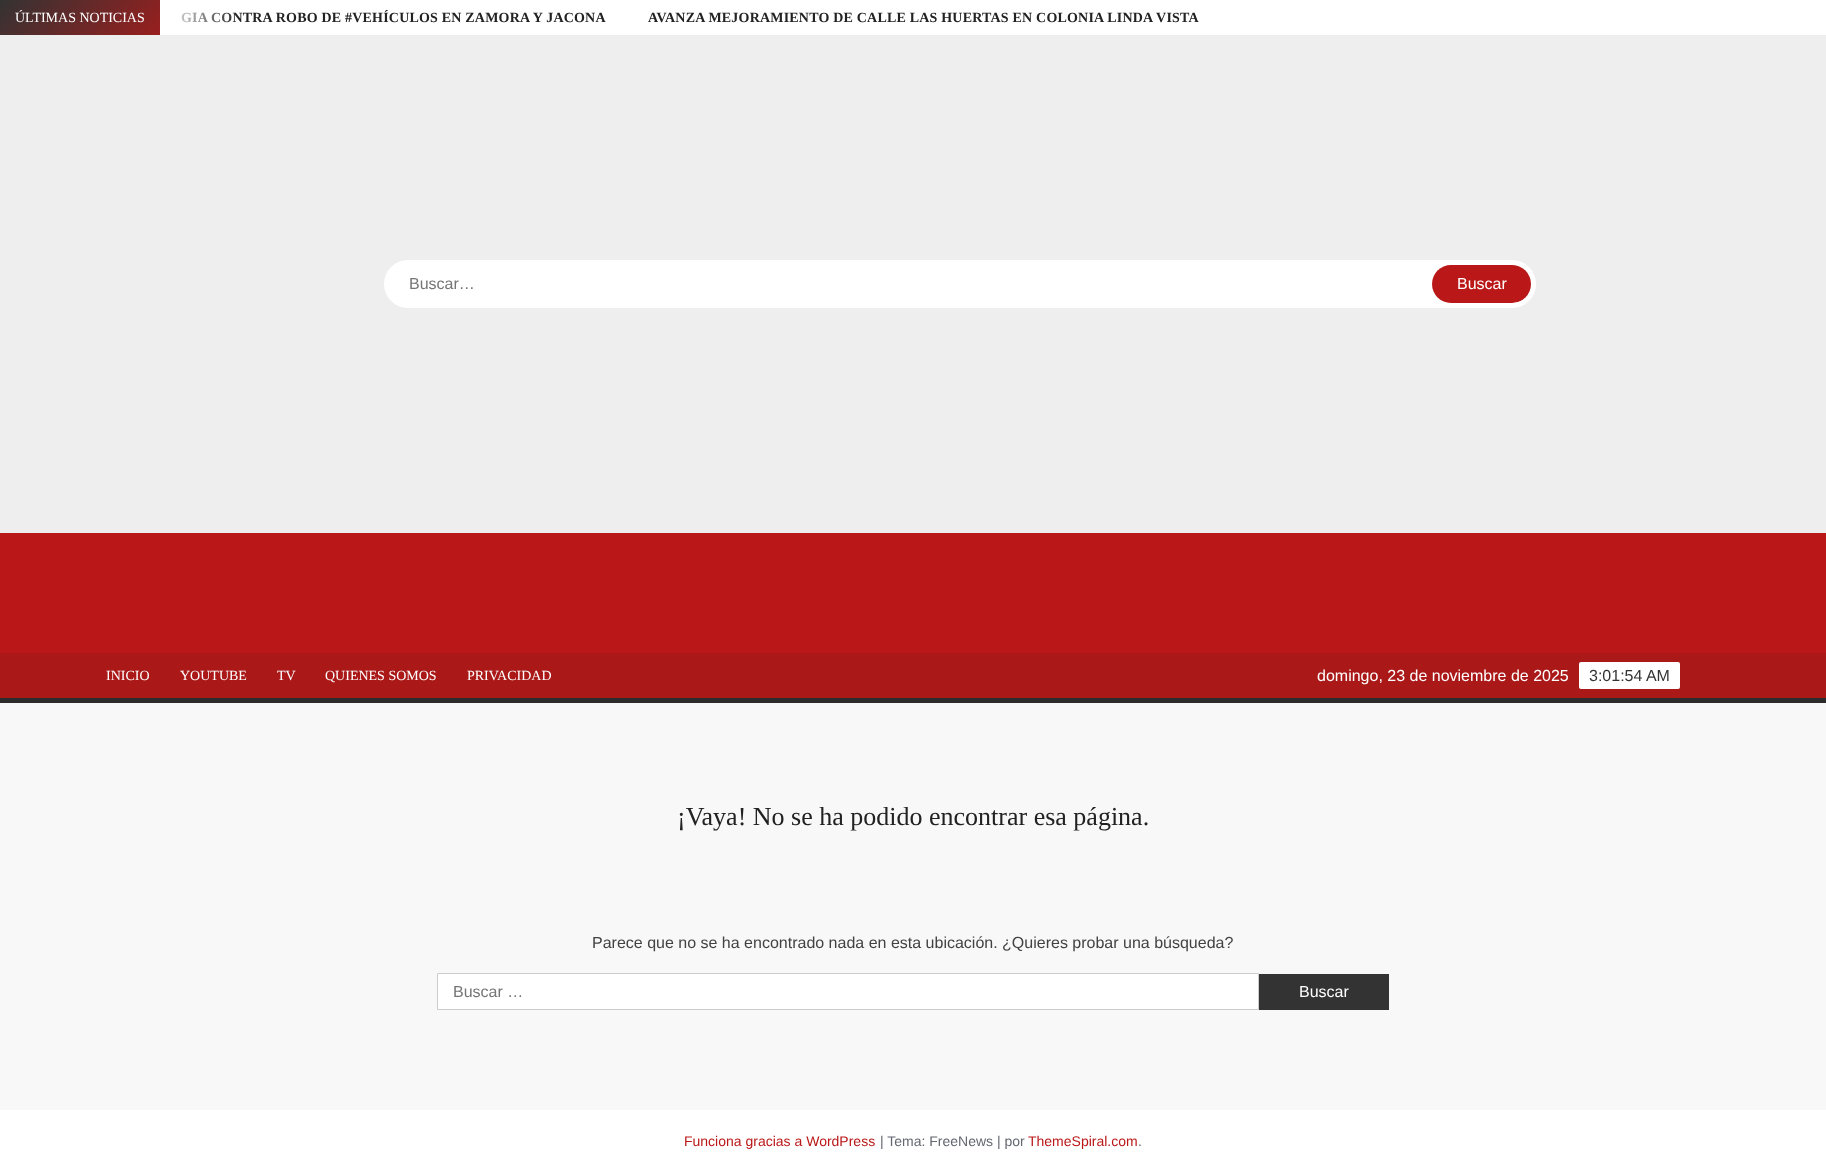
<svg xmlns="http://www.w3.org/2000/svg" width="1826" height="1166">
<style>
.a{font:14px Liberation Serif;fill:#fff}
.b{font:bold 14px Liberation Serif;letter-spacing:0.2px;fill:#222}
.c{font:16px Liberation Sans;fill:#757575}
.d{font:16px Liberation Sans;fill:#fff}
.e{font:16px Liberation Sans;fill:#333}
.f{font:26px Liberation Serif;fill:#222}
.g{font:16px Liberation Sans;fill:#424242}
.h{font:14px Liberation Sans;fill:#ba1818}
.i{font:14px Liberation Sans;fill:#646770}
</style>
<defs>
<linearGradient id="g1" gradientUnits="userSpaceOnUse" x1="515" y1="265" x2="125" y2="-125"><stop offset="0" stop-color="#ba1818"/><stop offset="0.33" stop-color="#eee"/><stop offset="0.67" stop-color="#ba1818"/><stop offset="1" stop-color="#333"/></linearGradient>
<clipPath id="clip1"><rect x="389" y="265" width="1142" height="38" rx="19"/></clipPath>
<linearGradient id="g2" gradientUnits="userSpaceOnUse" x1="160" y1="18" x2="240" y2="17"><stop offset="0" stop-color="#fff"/><stop offset="1" stop-color="#fff" stop-opacity="0"/></linearGradient>
</defs>
<rect width="100%" height="100%" fill="#f8f8f8"/>
<path fill="#fff" d="M160 0h1666v35H160z"/>
<path fill="url(#g1)" d="M0 0h160v35H0z"/>
<path fill="#eee" d="M0 35h1826v498H0z"/>
<rect fill="#fff" x="384" y="260" width="1152" height="48" rx="24"/>
<g clip-path="url(#clip1)">
<rect fill="#ba1818" x="1432" y="265" width="100" height="38" rx="19"/>
</g>
<path fill="#ba1818" d="M0 533h1826v120H0z"/>
<path fill="#aa1818" d="M0 653h1826v45H0z"/>
<path fill="#2c2c2c" d="M0 698h1826v5H0z"/>
<rect fill="#fff" x="1579" y="662" width="101" height="27" rx="2"/>
<path fill="#fff" stroke="#ccc" d="M437.5 973.5h821v36H437.5z"/>
<path fill="#333" d="M1259 974h130v36H1259z"/>
<path fill="#fff" d="M0 1110h1826v56H0z"/>
<text class="a" x="15" y="22">ÚLTIMAS NOTICIAS</text>
<text class="b" x="181" y="22">GIA CONTRA ROBO DE #VEHÍCULOS EN ZAMORA Y JACONA</text>
<path fill="url(#g2)" d="M181 12h57v11H181z"/>
<text class="b" x="648" y="22">AVANZA MEJORAMIENTO DE CALLE LAS HUERTAS EN COLONIA LINDA VISTA</text>
<text class="c" x="409" y="289">Buscar…</text>
<text class="d" x="1457" y="289">Buscar</text>
<text class="a" x="106" y="680">INICIO</text>
<text class="a" x="180" y="680">YOUTUBE</text>
<text class="a" x="277" y="680">TV</text>
<text class="a" x="325" y="680">QUIENES SOMOS</text>
<text class="a" x="467" y="680">PRIVACIDAD</text>
<text class="d" x="1317" y="681">domingo, 23 de noviembre de 2025</text>
<text class="e" x="1589" y="681">3:01:54 AM</text>
<text class="f" x="677" y="825">¡Vaya! No se ha podido encontrar esa página.</text>
<text class="g" x="592" y="948">Parece que no se ha encontrado nada en esta ubicación. ¿Quieres probar una búsqueda?</text>
<text class="c" x="453" y="997">Buscar …</text>
<text class="d" x="1299" y="997">Buscar</text>
<text class="h" x="684" y="1146">Funciona gracias a WordPress</text>
<text class="i" x="880" y="1146">| Tema: FreeNews | por</text>
<text class="h" x="1028" y="1146">ThemeSpiral.com</text>
<text class="i" x="1138" y="1146">.</text>
</svg>
